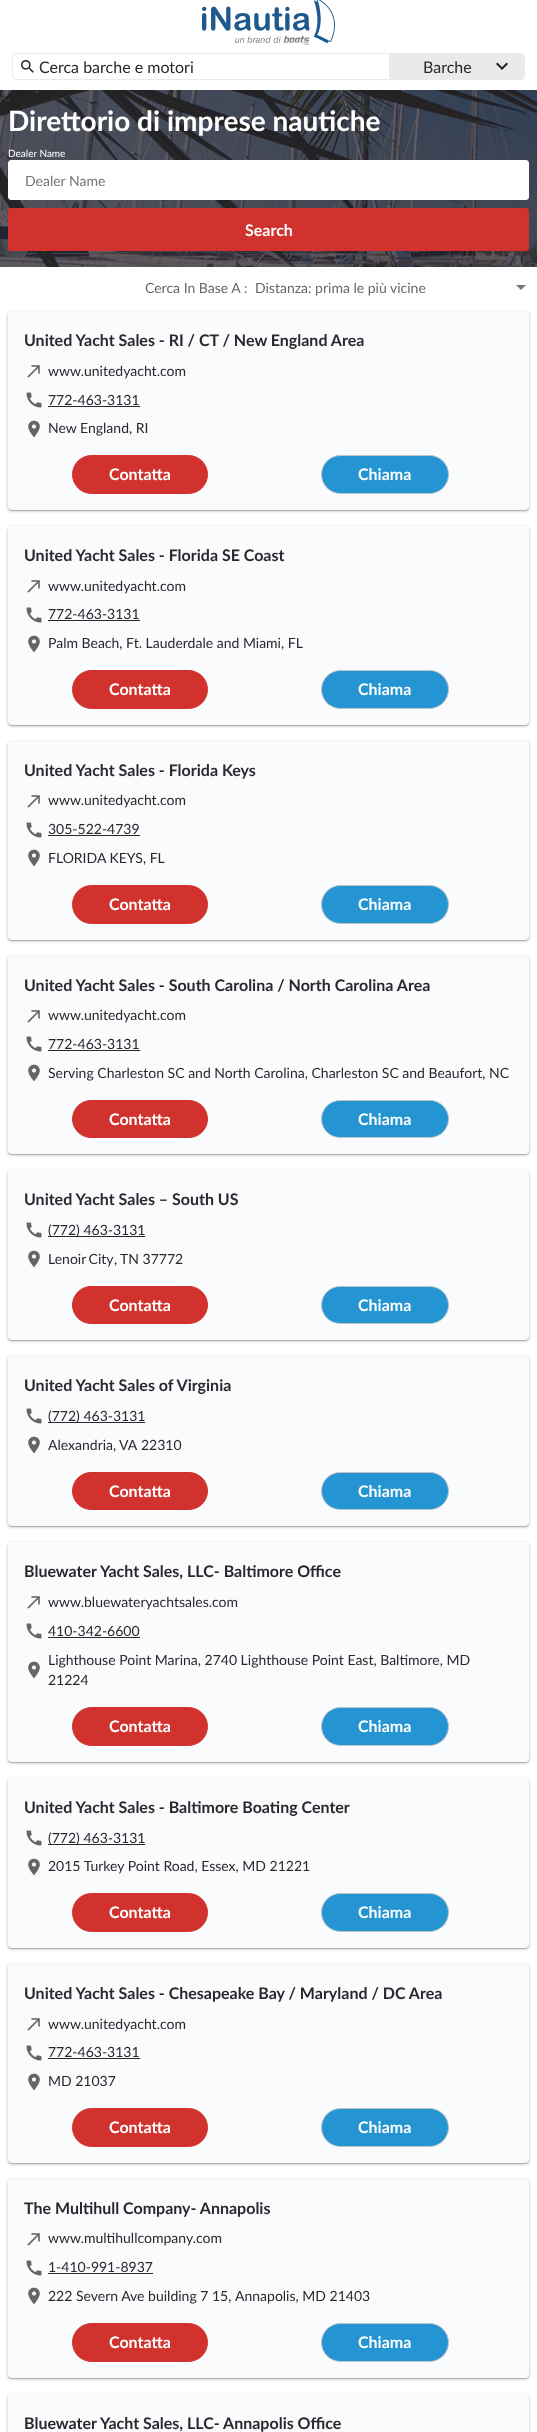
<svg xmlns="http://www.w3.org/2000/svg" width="537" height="2432">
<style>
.a{font:16px Lato;fill:#2c272d}
.b{font:bold 28px Lato;fill:#fff}
.c{font:10px Lato;fill:#fff}
.d{font:14px Lato;fill:#757575}
.e{font:bold 16px Lato;fill:#fff}
.f{font:14px Lato;fill:#676767}
.g{font:bold 16px Lato;fill:#2c272d}
.h{font:14px Lato;fill:#2c272d}
</style>
<rect width="100%" height="100%" fill="#fff"/>
<image href="1.png" x="202" y="0" width="133" height="45"/>
<rect fill="none" stroke="#eaeaea" x="12.5" y="53.5" width="512" height="26" rx="3.5"/>
<image href="2.png" x="21" y="60" width="13" height="13"/>
<path fill="#eaeaea" d="M389 54h131c2 0 4 2 4 4v17c0 2-2 4-4 4h-131z"/>
<image href="3.png" x="496" y="62" width="12" height="8"/>
<image href="4.png" x="0" y="90" width="537" height="177"/>
<rect fill="#fff" stroke="#fff" x="8.5" y="160.5" width="520" height="39" rx="2.5"/>
<rect fill="#d2322d" x="8" y="208" width="521" height="43" rx="3"/>
<path fill="#777" d="M516 285l5 5l5-5z"/>
<rect fill="#00000026" filter="blur(0.5px)" x="8" y="312" width="521" height="199" rx="4"/>
<rect fill="#00000026" filter="blur(1.5px)" x="8" y="312" width="521" height="199" rx="4"/>
<rect fill="#00000026" filter="blur(1.5px)" x="8" y="312" width="521" height="199" rx="4"/>
<rect fill="#f9fbfd" x="8" y="311" width="521" height="199" rx="4"/>
<image href="5.png" x="27" y="365" width="13" height="13"/>
<image href="6.png" x="26" y="392" width="16" height="16"/>
<path fill="#2c272d" d="M48 406h92v1H48z"/>
<image href="7.png" x="28" y="420" width="12" height="18"/>
<rect fill="#d2322d" stroke="#d2322d" x="72.5" y="455.5" width="135" height="38" rx="19"/>
<rect fill="#2594d2" stroke="#bdc3c7" x="321.5" y="455.5" width="127" height="38" rx="19"/>
<rect fill="#00000026" filter="blur(0.5px)" x="8" y="527" width="521" height="199" rx="4"/>
<rect fill="#00000026" filter="blur(1.5px)" x="8" y="527" width="521" height="199" rx="4"/>
<rect fill="#00000026" filter="blur(1.5px)" x="8" y="527" width="521" height="199" rx="4"/>
<rect fill="#f9fbfd" x="8" y="526" width="521" height="199" rx="4"/>
<image href="5.png" x="27" y="580" width="13" height="13"/>
<image href="6.png" x="26" y="607" width="16" height="16"/>
<path fill="#2c272d" d="M48 620h92v1H48z"/>
<image href="7.png" x="28" y="635" width="12" height="18"/>
<rect fill="#d2322d" stroke="#d2322d" x="72.5" y="670.5" width="135" height="38" rx="19"/>
<rect fill="#2594d2" stroke="#bdc3c7" x="321.5" y="670.5" width="127" height="38" rx="19"/>
<rect fill="#00000026" filter="blur(0.5px)" x="8" y="742" width="521" height="199" rx="4"/>
<rect fill="#00000026" filter="blur(1.5px)" x="8" y="742" width="521" height="199" rx="4"/>
<rect fill="#00000026" filter="blur(1.5px)" x="8" y="742" width="521" height="199" rx="4"/>
<rect fill="#f9fbfd" x="8" y="741" width="521" height="199" rx="4"/>
<image href="5.png" x="27" y="795" width="13" height="13"/>
<image href="6.png" x="26" y="822" width="16" height="16"/>
<path fill="#2c272d" d="M48 835h92v1H48z"/>
<image href="7.png" x="28" y="849" width="12" height="18"/>
<rect fill="#d2322d" stroke="#d2322d" x="72.5" y="885.5" width="135" height="38" rx="19"/>
<rect fill="#2594d2" stroke="#bdc3c7" x="321.5" y="885.5" width="127" height="38" rx="19"/>
<rect fill="#00000026" filter="blur(0.5px)" x="8" y="957" width="521" height="198" rx="4"/>
<rect fill="#00000026" filter="blur(1.5px)" x="8" y="957" width="521" height="198" rx="4"/>
<rect fill="#00000026" filter="blur(1.5px)" x="8" y="957" width="521" height="198" rx="4"/>
<rect fill="#f9fbfd" x="8" y="956" width="521" height="198" rx="4"/>
<image href="5.png" x="27" y="1010" width="13" height="13"/>
<image href="6.png" x="26" y="1036" width="16" height="16"/>
<path fill="#2c272d" d="M48 1050h92v1H48z"/>
<image href="7.png" x="28" y="1064" width="12" height="18"/>
<rect fill="#d2322d" stroke="#d2322d" x="72.5" y="1100.5" width="135" height="37" rx="18.5"/>
<rect fill="#2594d2" stroke="#bdc3c7" x="321.5" y="1100.5" width="127" height="37" rx="18.5"/>
<rect fill="#00000026" filter="blur(0.5px)" x="8" y="1171" width="521" height="170" rx="4"/>
<rect fill="#00000026" filter="blur(1.5px)" x="8" y="1171" width="521" height="170" rx="4"/>
<rect fill="#00000026" filter="blur(1.5px)" x="8" y="1171" width="521" height="170" rx="4"/>
<rect fill="#f9fbfd" x="8" y="1170" width="521" height="170" rx="4"/>
<image href="6.png" x="26" y="1222" width="16" height="16"/>
<path fill="#2c272d" d="M48 1236h97v1H48z"/>
<image href="7.png" x="28" y="1250" width="12" height="18"/>
<rect fill="#d2322d" stroke="#d2322d" x="72.5" y="1286.5" width="135" height="37" rx="18.5"/>
<rect fill="#2594d2" stroke="#bdc3c7" x="321.5" y="1286.5" width="127" height="37" rx="18.5"/>
<rect fill="#00000026" filter="blur(0.5px)" x="8" y="1357" width="521" height="170" rx="4"/>
<rect fill="#00000026" filter="blur(1.5px)" x="8" y="1357" width="521" height="170" rx="4"/>
<rect fill="#00000026" filter="blur(1.5px)" x="8" y="1357" width="521" height="170" rx="4"/>
<rect fill="#f9fbfd" x="8" y="1356" width="521" height="170" rx="4"/>
<image href="6.png" x="26" y="1408" width="16" height="16"/>
<path fill="#2c272d" d="M48 1422h97v1H48z"/>
<image href="7.png" x="28" y="1436" width="12" height="18"/>
<rect fill="#d2322d" stroke="#d2322d" x="72.5" y="1472.5" width="135" height="37" rx="18.5"/>
<rect fill="#2594d2" stroke="#bdc3c7" x="321.5" y="1472.5" width="127" height="37" rx="18.5"/>
<rect fill="#00000026" filter="blur(0.5px)" x="8" y="1543" width="521" height="220" rx="4"/>
<rect fill="#00000026" filter="blur(1.5px)" x="8" y="1543" width="521" height="220" rx="4"/>
<rect fill="#00000026" filter="blur(1.5px)" x="8" y="1543" width="521" height="220" rx="4"/>
<rect fill="#f9fbfd" x="8" y="1542" width="521" height="220" rx="4"/>
<image href="5.png" x="27" y="1596" width="13" height="13"/>
<image href="6.png" x="26" y="1623" width="16" height="16"/>
<path fill="#2c272d" d="M48 1637h92v1H48z"/>
<image href="7.png" x="28" y="1661" width="12" height="18"/>
<rect fill="#d2322d" stroke="#d2322d" x="72.5" y="1707.5" width="135" height="38" rx="19"/>
<rect fill="#2594d2" stroke="#bdc3c7" x="321.5" y="1707.5" width="127" height="38" rx="19"/>
<rect fill="#00000026" filter="blur(0.5px)" x="8" y="1779" width="521" height="170" rx="4"/>
<rect fill="#00000026" filter="blur(1.5px)" x="8" y="1779" width="521" height="170" rx="4"/>
<rect fill="#00000026" filter="blur(1.5px)" x="8" y="1779" width="521" height="170" rx="4"/>
<rect fill="#f9fbfd" x="8" y="1778" width="521" height="170" rx="4"/>
<image href="6.png" x="26" y="1830" width="16" height="16"/>
<path fill="#2c272d" d="M48 1844h97v1H48z"/>
<image href="7.png" x="28" y="1858" width="12" height="18"/>
<rect fill="#d2322d" stroke="#d2322d" x="72.5" y="1893.5" width="135" height="38" rx="19"/>
<rect fill="#2594d2" stroke="#bdc3c7" x="321.5" y="1893.5" width="127" height="38" rx="19"/>
<rect fill="#00000026" filter="blur(0.5px)" x="8" y="1965" width="521" height="199" rx="4"/>
<rect fill="#00000026" filter="blur(1.5px)" x="8" y="1965" width="521" height="199" rx="4"/>
<rect fill="#00000026" filter="blur(1.5px)" x="8" y="1965" width="521" height="199" rx="4"/>
<rect fill="#f9fbfd" x="8" y="1964" width="521" height="199" rx="4"/>
<image href="5.png" x="27" y="2018" width="13" height="13"/>
<image href="6.png" x="26" y="2045" width="16" height="16"/>
<path fill="#2c272d" d="M48 2058h92v1H48z"/>
<image href="7.png" x="28" y="2073" width="12" height="18"/>
<rect fill="#d2322d" stroke="#d2322d" x="72.5" y="2108.5" width="135" height="38" rx="19"/>
<rect fill="#2594d2" stroke="#bdc3c7" x="321.5" y="2108.5" width="127" height="38" rx="19"/>
<rect fill="#00000026" filter="blur(0.5px)" x="8" y="2180" width="521" height="199" rx="4"/>
<rect fill="#00000026" filter="blur(1.5px)" x="8" y="2180" width="521" height="199" rx="4"/>
<rect fill="#00000026" filter="blur(1.5px)" x="8" y="2180" width="521" height="199" rx="4"/>
<rect fill="#f9fbfd" x="8" y="2179" width="521" height="199" rx="4"/>
<image href="5.png" x="27" y="2233" width="13" height="13"/>
<image href="6.png" x="26" y="2260" width="16" height="16"/>
<path fill="#2c272d" d="M48 2273h105v1H48z"/>
<image href="7.png" x="28" y="2287" width="12" height="18"/>
<rect fill="#d2322d" stroke="#d2322d" x="72.5" y="2323.5" width="135" height="38" rx="19"/>
<rect fill="#2594d2" stroke="#bdc3c7" x="321.5" y="2323.5" width="127" height="38" rx="19"/>
<rect fill="#00000026" filter="blur(1.5px)" x="8" y="2395" width="521" height="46" rx="4"/>
<rect fill="#00000026" filter="blur(1.5px)" x="8" y="2395" width="521" height="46" rx="4"/>
<rect fill="#f9fbfd" x="8" y="2394" width="521" height="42" rx="4"/>
<text class="a" x="39" y="73">Cerca barche e motori</text>
<text class="a" x="423" y="73">Barche</text>
<text class="b" x="8" y="131">Direttorio di imprese nautiche</text>
<text class="c" x="8" y="157">Dealer Name</text>
<text class="d" x="25" y="186">Dealer Name</text>
<text class="e" x="245" y="236">Search</text>
<text class="f" x="145" y="293">Cerca In Base A :</text>
<text class="f" x="255" y="293">Distanza: prima le più vicine</text>
<text class="g" x="24" y="346">United Yacht Sales - RI / CT / New England Area</text>
<text class="h" x="48" y="376">www.unitedyacht.com</text>
<text class="h" x="48" y="405">772-463-3131</text>
<text class="h" x="48" y="433">New England, RI</text>
<text class="e" x="109" y="480">Contatta</text>
<text class="e" x="358" y="480">Chiama</text>
<text class="g" x="24" y="561">United Yacht Sales - Florida SE Coast</text>
<text class="h" x="48" y="591">www.unitedyacht.com</text>
<text class="h" x="48" y="619">772-463-3131</text>
<text class="h" x="48" y="648">Palm Beach, Ft. Lauderdale and Miami, FL</text>
<text class="e" x="109" y="695">Contatta</text>
<text class="e" x="358" y="695">Chiama</text>
<text class="g" x="24" y="776">United Yacht Sales - Florida Keys</text>
<text class="h" x="48" y="805">www.unitedyacht.com</text>
<text class="h" x="48" y="834">305-522-4739</text>
<text class="h" x="48" y="863">FLORIDA KEYS, FL</text>
<text class="e" x="109" y="910">Contatta</text>
<text class="e" x="358" y="910">Chiama</text>
<text class="g" x="24" y="991">United Yacht Sales - South Carolina / North Carolina Area</text>
<text class="h" x="48" y="1020">www.unitedyacht.com</text>
<text class="h" x="48" y="1049">772-463-3131</text>
<text class="h" x="48" y="1078">Serving Charleston SC and North Carolina, Charleston SC and Beaufort, NC</text>
<text class="e" x="109" y="1125">Contatta</text>
<text class="e" x="358" y="1125">Chiama</text>
<text class="g" x="24" y="1205">United Yacht Sales – South US</text>
<text class="h" x="48" y="1235">(772) 463-3131</text>
<text class="h" x="48" y="1264" word-spacing="-1">Lenoir City</text>
<text class="h" x="114" y="1264">,</text>
<text class="h" x="120" y="1264">TN 37772</text>
<text class="e" x="109" y="1311">Contatta</text>
<text class="e" x="358" y="1311">Chiama</text>
<text class="g" x="24" y="1391">United Yacht Sales of Virginia</text>
<text class="h" x="48" y="1421">(772) 463-3131</text>
<text class="h" x="48" y="1450">Alexandria,</text>
<text class="h" x="119" y="1450">VA</text>
<text class="h" x="141" y="1450">22310</text>
<text class="e" x="109" y="1497">Contatta</text>
<text class="e" x="358" y="1497">Chiama</text>
<text class="g" x="24" y="1577">Bluewater Yacht Sales, LLC- Baltimore Office</text>
<text class="h" x="48" y="1607">www.bluewateryachtsales.com</text>
<text class="h" x="48" y="1636">410-342-6600</text>
<text class="h" x="48" y="1665">Lighthouse Point Marina, 2740 Lighthouse Point East, Baltimore, MD</text>
<text class="h" x="48" y="1685">21224</text>
<text class="e" x="109" y="1732">Contatta</text>
<text class="e" x="358" y="1732">Chiama</text>
<text class="g" x="24" y="1813">United Yacht Sales - Baltimore Boating Center</text>
<text class="h" x="48" y="1843">(772) 463-3131</text>
<text class="h" x="48" y="1871">2015 Turkey Point Road, Essex, MD 21221</text>
<text class="e" x="109" y="1918">Contatta</text>
<text class="e" x="358" y="1918">Chiama</text>
<text class="g" x="24" y="1999">United Yacht Sales - Chesapeake Bay / Maryland / DC Area</text>
<text class="h" x="48" y="2029">www.unitedyacht.com</text>
<text class="h" x="48" y="2057">772-463-3131</text>
<text class="h" x="48" y="2086">MD 21037</text>
<text class="e" x="109" y="2133">Contatta</text>
<text class="e" x="358" y="2133">Chiama</text>
<text class="g" x="24" y="2214">The Multihull Company- Annapolis</text>
<text class="h" x="48" y="2243">www.multihullcompany.com</text>
<text class="h" x="48" y="2272">1-410-991-8937</text>
<text class="h" x="48" y="2301">222 Severn Ave building 7 15,</text>
<text class="h" x="235" y="2301">Annapolis, MD 21403</text>
<text class="e" x="109" y="2348">Contatta</text>
<text class="e" x="358" y="2348">Chiama</text>
<text class="g" x="24" y="2429">Bluewater Yacht Sales, LLC- Annapolis Office</text>
</svg>
